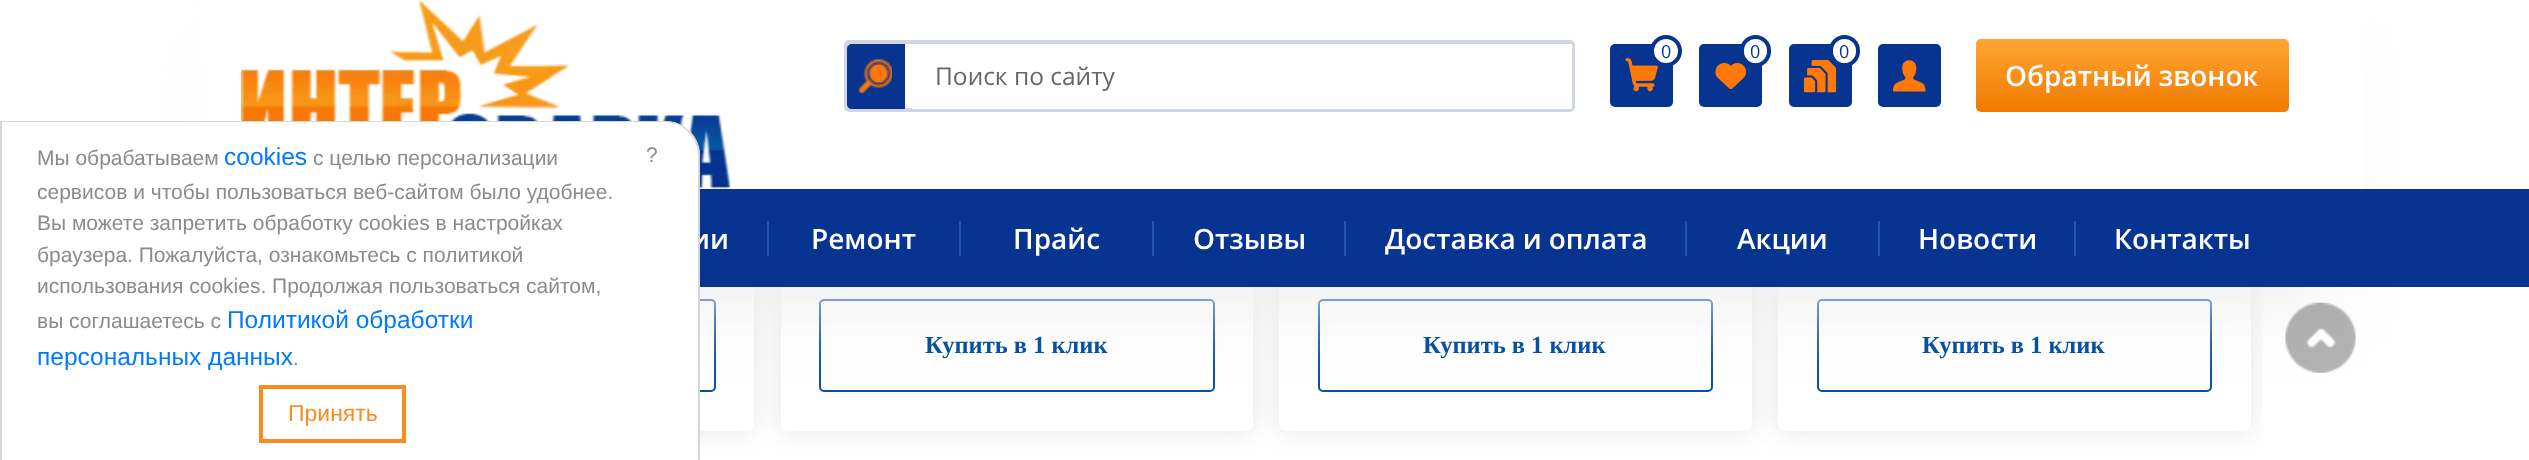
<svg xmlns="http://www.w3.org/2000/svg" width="2529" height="460">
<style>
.a{font:18px Open Sans;fill:#063490}
.b{font:24.5px Open Sans;fill:#666}
.c{font:600 28px Open Sans;fill:#fff}
.d{font:21px Liberation Sans;fill:#8b8b8b}
.e{font:23px Liberation Sans;fill:#fb8a1f}
.f{font:24.5px Liberation Sans;fill:#007bff}
.g{font:bold 24.5px Liberation Serif;fill:#0851a1}
</style>
<defs>
<clipPath id="clip1"><path d="M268 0h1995v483H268z"/></clipPath>
<linearGradient id="g1" gradientUnits="userSpaceOnUse" x1="2132" y1="38" x2="2132" y2="112"><stop offset="0" stop-color="#ffa633"/><stop offset="1" stop-color="#f07a00"/></linearGradient>
</defs>
<rect width="100%" height="100%" fill="#fff"/>
<rect fill="#0000001a" filter="blur(13px)" x="282" y="-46" width="472" height="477" rx="7"/>
<rect fill="#fff" x="282" y="-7" width="472" height="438" rx="7"/>
<rect fill="none" stroke="#0851a1" stroke-width="2" x="321" y="300" width="394" height="91" rx="4"/>
<rect fill="#0000001a" filter="blur(13px)" x="781" y="-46" width="472" height="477" rx="7"/>
<rect fill="#fff" x="781" y="-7" width="472" height="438" rx="7"/>
<rect fill="none" stroke="#0851a1" stroke-width="2" x="820" y="300" width="394" height="91" rx="4"/>
<rect fill="#0000001a" filter="blur(13px)" x="1279" y="-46" width="473" height="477" rx="7"/>
<rect fill="#fff" x="1279" y="-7" width="473" height="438" rx="7"/>
<rect fill="none" stroke="#0851a1" stroke-width="2" x="1319" y="300" width="393" height="91" rx="4"/>
<g clip-path="url(#clip1)">
<rect fill="#0000001a" filter="blur(13px)" x="1778" y="-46" width="473" height="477" rx="7"/>
</g>
<rect fill="#fff" x="1778" y="-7" width="473" height="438" rx="7"/>
<rect fill="none" stroke="#0851a1" stroke-width="2" x="1818" y="300" width="393" height="91" rx="4"/>
<rect fill="#edeeefcc" filter="blur(35px)" x="233" y="56" width="2100" height="256" rx="18"/>
<path fill="#fff" d="M201 0h2164v189H201z"/>
<image href="1.png" x="241" y="0" width="490" height="189"/>
<path fill="#fff" d="M0 121h665c19.5 0 35 15.5 35 35v304h-700z"/>
<rect fill="#063490" x="1610" y="44" width="63" height="63" rx="5"/>
<image href="2.png" x="1625" y="58" width="33" height="34"/>
<circle fill="#fff" stroke="#063490" stroke-width="4" cx="1666" cy="51" r="14"/>
<rect fill="#063490" x="1699" y="44" width="63" height="63" rx="5"/>
<image href="3.png" x="1715" y="63" width="32" height="26"/>
<rect fill="#fff" stroke="#063490" stroke-width="4" x="1742" y="37" width="27" height="28" rx="13.5"/>
<rect fill="#063490" x="1789" y="44" width="63" height="63" rx="5"/>
<image href="4.png" x="1803" y="60" width="34" height="33"/>
<rect fill="#fff" stroke="#063490" stroke-width="4" x="1831" y="37" width="27" height="28" rx="13.5"/>
<rect fill="#063490" x="1878" y="44" width="63" height="63" rx="5"/>
<image href="5.png" x="1893" y="60" width="33" height="32"/>
<rect fill="none" stroke="#d0d7e3" stroke-width="4" x="846" y="42" width="727" height="68" rx="3"/>
<path fill="#063490" d="M852 44h53v65h-53c-3 0-5-2-5-5v-55c0-3 2-5 5-5z"/>
<image href="6.png" x="858" y="59" width="34" height="34"/>
<path fill="#fff" d="M912 44h660v65H912z"/>
<rect fill="url(#g1)" x="1976" y="39" width="313" height="73" rx="5"/>
<path fill="#063490" d="M700 189h1829v98H700z"/>
<path fill="#2453b2" d="M767 221h2v35H767z"/>
<path fill="#2453b2" d="M959 221h2v35H959z"/>
<path fill="#2453b2" d="M1152 221h2v35H1152z"/>
<path fill="#2453b2" d="M1344 221h2v35H1344z"/>
<path fill="#2453b2" d="M1685 221h2v35H1685z"/>
<path fill="#2453b2" d="M1878 221h2v35H1878z"/>
<path fill="#2453b2" d="M2074 221h2v35H2074z"/>
<image href="7.png" x="2285" y="302" width="71" height="71"/>
<text class="a" x="1661" y="58">0</text>
<text class="a" x="1750" y="58">0</text>
<text class="a" x="1839" y="58">0</text>
<text class="b" x="935" y="85">Поиск по сайту</text>
<text class="c" x="2005" y="86">Обратный звонок</text>
<text class="c" x="691" y="249">ии</text>
<path fill="#d6d6d6" fill-rule="evenodd" d="M0 121h665c19 0 35 15 35 35v304h-700zm2 1h663c18 0 33 15 33 34v304h-696z"/>
<text class="d" x="646" y="162">?</text>
<path fill="none" stroke="#fb8a1f" stroke-width="4" d="M261 387h143v54H261z"/>
<text class="e" x="288" y="421">Принять</text>
<text class="d" x="293" y="365">.</text>
<text class="f" x="37" y="365">персональных данных</text>
<text class="f" x="227" y="328">Политикой обработки</text>
<text class="d" x="37" y="328">вы соглашаетесь с</text>
<text class="d" x="37" y="293">использования cookies. Продолжая пользоваться сайтом,</text>
<text class="d" x="37" y="262">браузера. Пожалуйста, ознакомьтесь с политикой</text>
<text class="d" x="37" y="230">Вы можете запретить обработку сookies в настройках</text>
<text class="d" x="37" y="199">сервисов и чтобы пользоваться веб-сайтом было удобнее.</text>
<text class="d" x="313" y="165">с целью персонализации</text>
<text class="f" x="224" y="165">cookies</text>
<text class="d" x="37" y="165">Мы обрабатываем</text>
<text class="c" x="811" y="249">Ремонт</text>
<text class="c" x="1013" y="249">Прайс</text>
<text class="c" x="1193" y="249">Отзывы</text>
<text class="c" x="1385" y="249">Доставка и оплата</text>
<text class="c" x="1737" y="249">Акции</text>
<text class="c" x="1918" y="249">Новости</text>
<text class="c" x="2114" y="249">Контакты</text>
<text class="g" x="925" y="353">Купить в 1 клик</text>
<text class="g" x="1423" y="353">Купить в 1 клик</text>
<text class="g" x="1922" y="353">Купить в 1 клик</text>
</svg>
